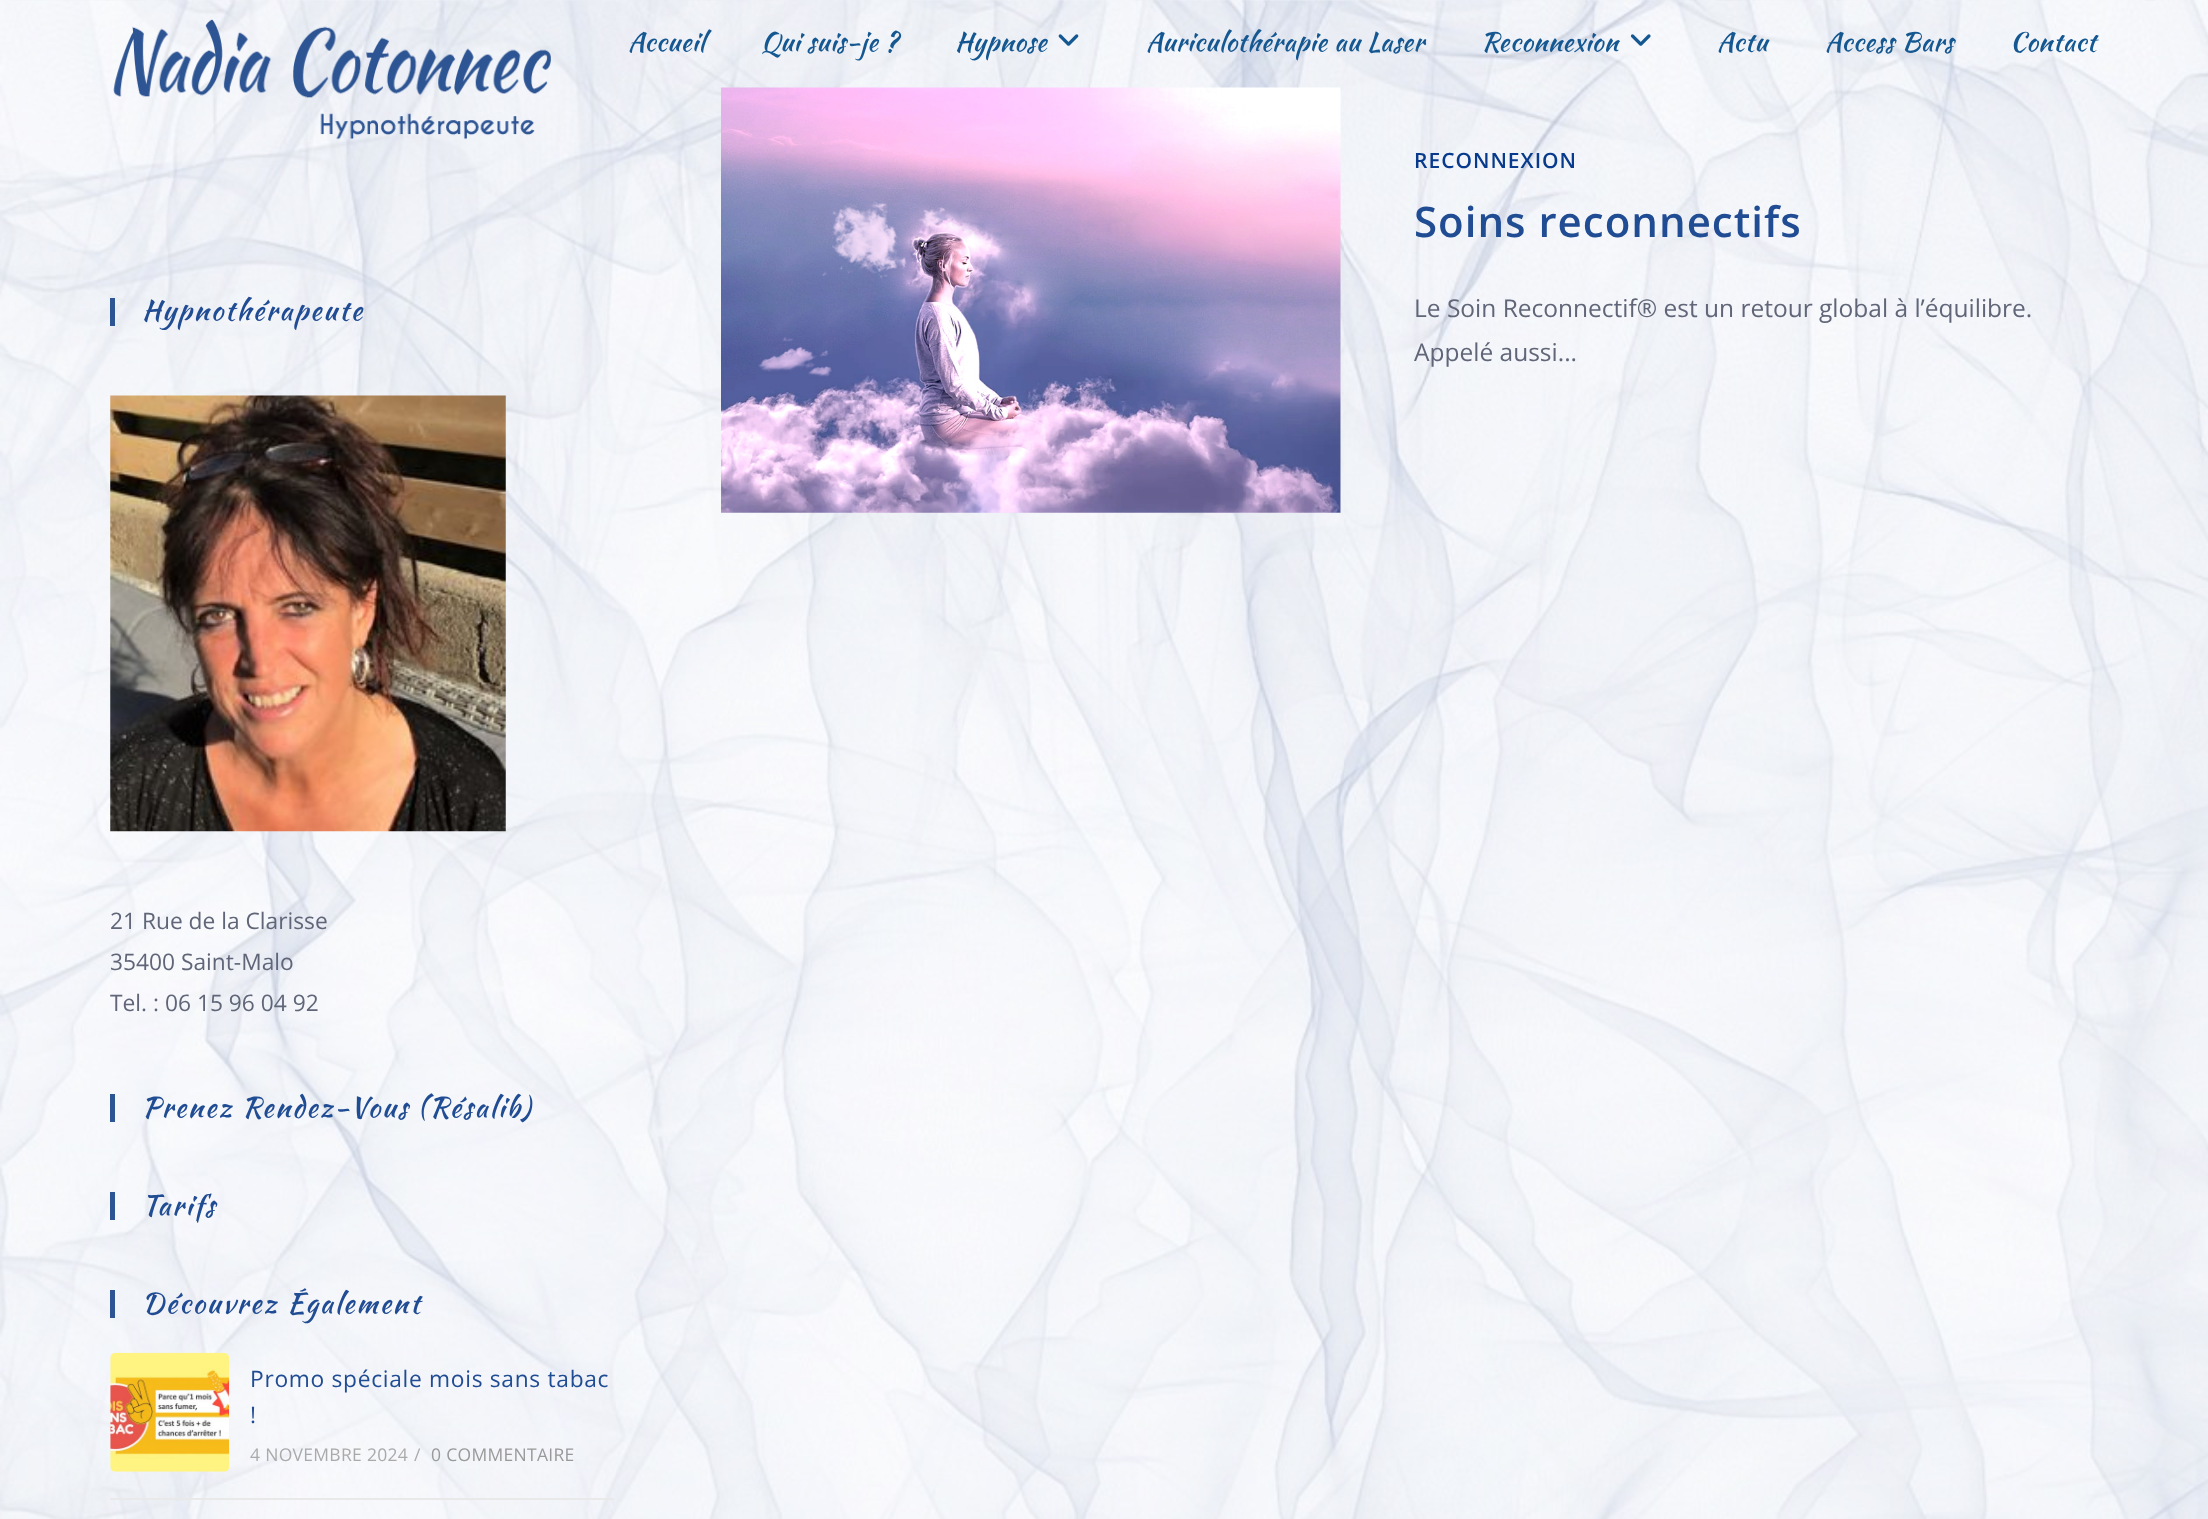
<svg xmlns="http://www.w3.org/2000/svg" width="2208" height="1519">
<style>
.a{font:26.25px Kaushan Script;letter-spacing:0.5px;fill:#145791}
.b{font:600 21px Open Sans;letter-spacing:1px;fill:#073a8c}
.c{font:600 42px Open Sans;letter-spacing:1px;fill:#204c93}
.d{font:24.5px Open Sans;fill:#606678}
.e{font:28px Kaushan Script;letter-spacing:1.9px;fill:#204c93}
.f{font:22.75px Open Sans;fill:#606678}
.g{font:22.75px Open Sans;letter-spacing:0.7px;fill:#204c93}
.h{font:17.5px Open Sans;letter-spacing:0.3px;fill:#aaa}
.i{font:17.5px Open Sans;letter-spacing:0.3px;fill:#999}
</style>
<rect width="100%" height="100%" fill="#fff"/>
<image href="1.png" x="0" y="0" width="2208" height="1519"/>
<image href="2.png" x="113" y="19" width="438" height="121"/>
<image href="3.png" x="1058" y="34" width="21" height="12"/>
<image href="4.png" x="1630" y="34" width="21" height="12"/>
<image href="5.png" x="721" y="87" width="620" height="426"/>
<path fill="#2d5493" d="M110 298h5v28H110z"/>
<image href="6.png" x="110" y="395" width="396" height="437"/>
<path fill="#2d5493" d="M110 1094h5v28H110z"/>
<path fill="#2d5493" d="M110 1192h5v28H110z"/>
<path fill="#2d5493" d="M110 1290h5v28H110z"/>
<image href="7.png" x="110" y="1352" width="120" height="120"/>
<path fill="#e9e9e9" d="M110 1498h504v2H110z"/>
<text class="a" x="628" y="51">Accueil</text>
<text class="a" x="761" y="51">Qui suis-je ?</text>
<text class="a" x="955" y="51">Hypnose</text>
<text class="a" x="1146" y="51">Auriculothérapie au Laser</text>
<text class="a" x="1481" y="51">Reconnexion</text>
<text class="a" x="1717" y="51">Actu</text>
<text class="a" x="1825" y="51">Access Bars</text>
<text class="a" x="2010" y="51">Contact</text>
<text class="b" x="1414" y="168">RECONNEXION</text>
<text class="c" x="1414" y="237">Soins reconnectifs</text>
<text class="d" x="1414" y="317">Le Soin Reconnectif® est un retour global à l’équilibre.</text>
<text class="d" x="1414" y="361">Appelé aussi...</text>
<text class="e" x="142" y="320">Hypnothérapeute</text>
<text class="f" x="110" y="929">21 Rue de la Clarisse</text>
<text class="f" x="110" y="970">35400 Saint-Malo</text>
<text class="f" x="110" y="1011">Tel. :</text>
<text class="f" x="165" y="1011">06 15 96 04 92</text>
<text class="e" x="142" y="1117">Prenez Rendez-Vous (Résalib)</text>
<text class="e" x="142" y="1215">Tarifs</text>
<text class="e" x="142" y="1313">Découvrez Également</text>
<text class="g" x="250" y="1387">Promo spéciale mois sans tabac</text>
<text class="g" x="250" y="1423">!</text>
<text class="h" x="250" y="1461">4 NOVEMBRE 2024</text>
<text class="h" x="414" y="1461">/</text>
<text class="i" x="431" y="1461">0 COMMENTAIRE</text>
</svg>
